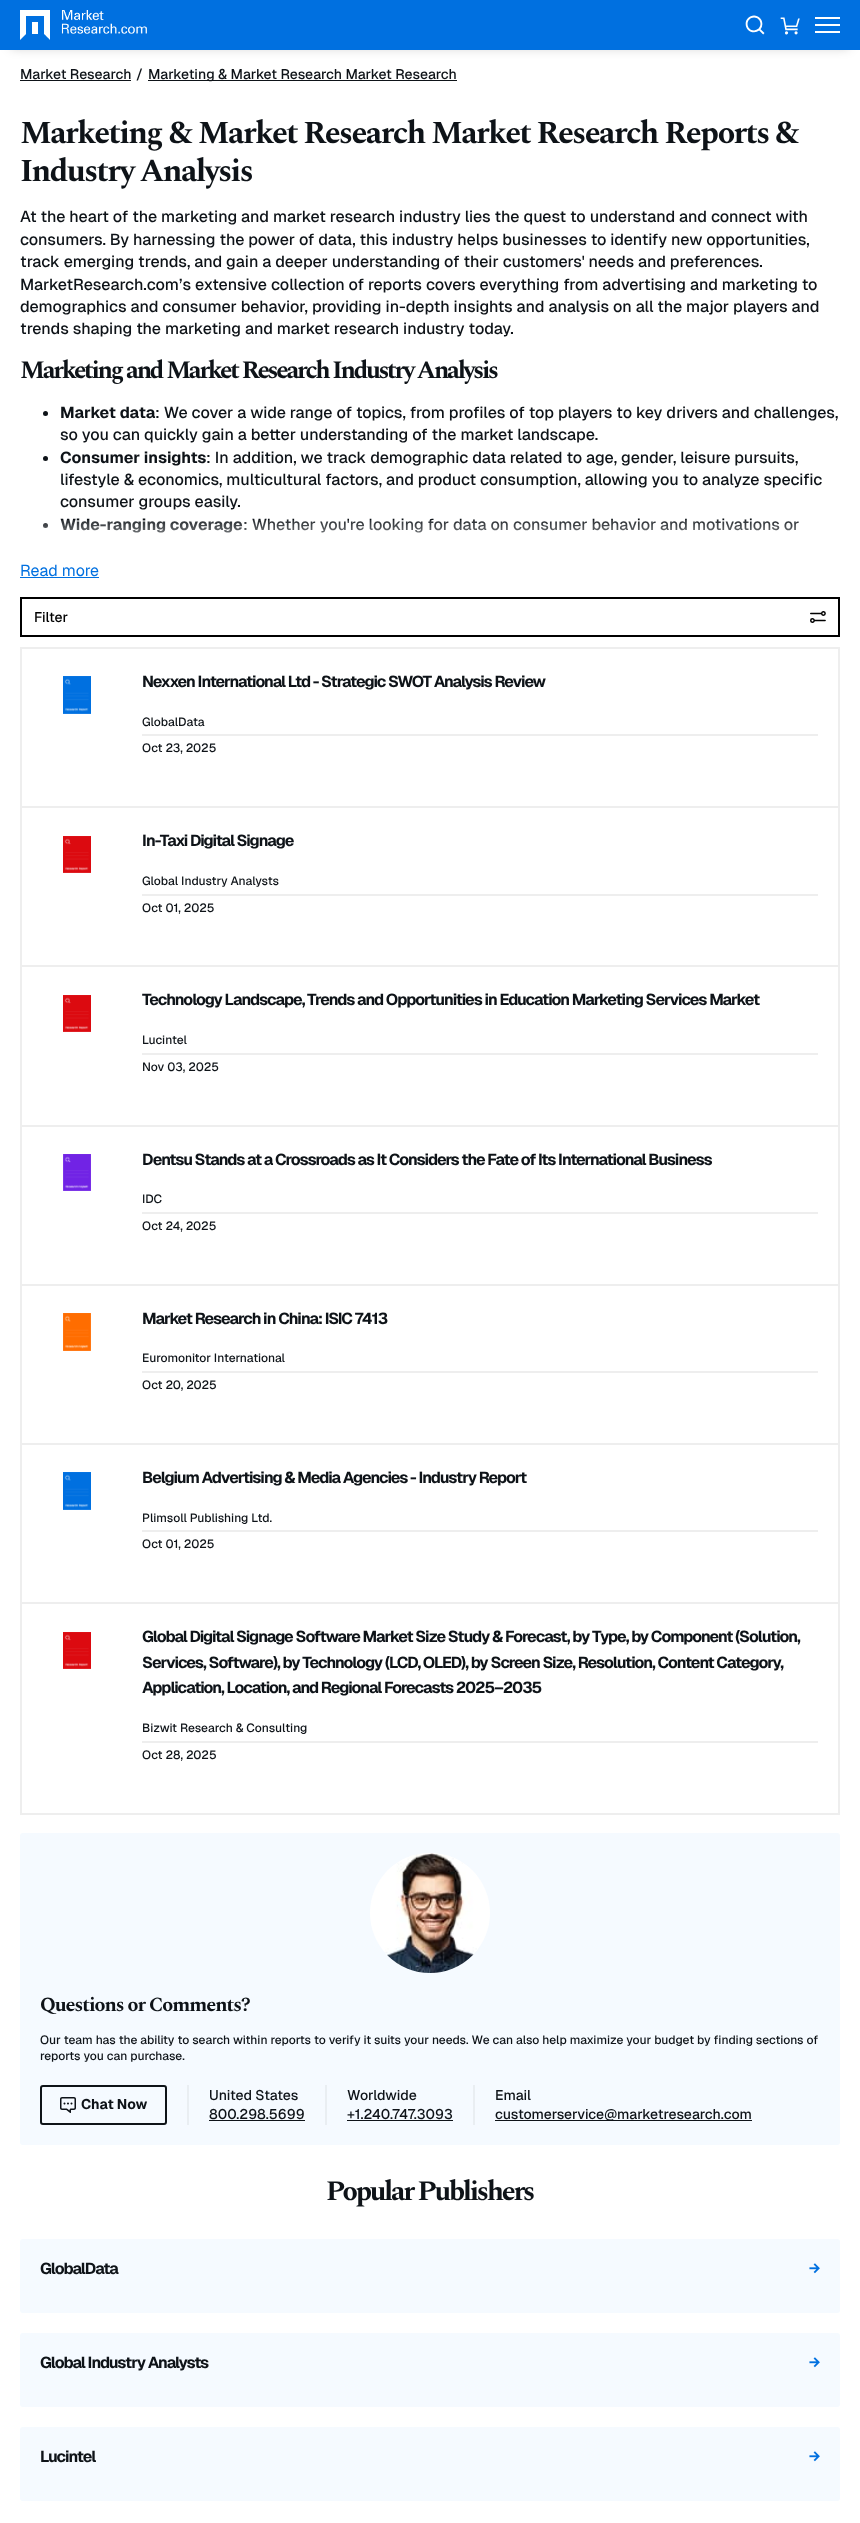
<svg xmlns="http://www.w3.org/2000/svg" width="860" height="2523">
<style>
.a{font:500 14px Geist;fill:#0e1318}
.b{font:bold 32px Spectral;letter-spacing:-1.6px;fill:#0e1318}
.c{font:500 16px Geist;fill:#0e1318}
.d{font:bold 25px Spectral;letter-spacing:-2.25px;fill:#0e1318}
.e{font:bold 16px Geist;fill:#0e1318}
.f{font:16px Geist;fill:#0070e0}
.g{font:500 14px Geist;fill:#000}
.h{font:bold 16px Geist;letter-spacing:-1px;fill:#0e1318}
.i{font:500 12px Geist;fill:#0e1318}
.j{font:bold 20px Spectral;letter-spacing:-1px;fill:#0e1318}
.k{font:bold 14px Geist;fill:#0e1318}
.l{font:bold 28px Spectral;letter-spacing:-2.25px;fill:#0e1318}
</style>
<defs>
<linearGradient id="g1" gradientUnits="userSpaceOnUse" x1="430" y1="520" x2="430" y2="560"><stop offset="0" stop-color="#fff" stop-opacity="0.1"/><stop offset="1" stop-color="#fff"/></linearGradient>
</defs>
<rect width="100%" height="100%" fill="#fff"/>
<path fill="#00000033" filter="blur(5.5px)" d="M11 20h838v28H11z"/>
<path fill="#0070e0" d="M0 0h860v50H0z"/>
<image href="1.png" x="20" y="10" width="127" height="30"/>
<image href="2.png" x="745" y="15" width="20" height="20"/>
<image href="3.png" x="780" y="17" width="20" height="18"/>
<path fill="#fff" d="M815 24h25v2H815z"/>
<path fill="#fff" d="M815 17h25v2H815z"/>
<path fill="#fff" d="M815 31h25v2H815z"/>
<path fill="#0e1318" d="M20 80h111v1H20z"/>
<path fill="#0e1318" d="M148 80h309v1H148z"/>
<circle fill="#0e1318" cx="45.5" cy="413.5" r="2.5"/>
<circle fill="#0e1318" cx="45.5" cy="458.5" r="2.5"/>
<circle fill="#0e1318" cx="45.5" cy="525.5" r="2.5"/>
<path fill="#0070e0" d="M20 577h79v1H20z"/>
<path fill="none" stroke="#000" stroke-width="2" d="M21 598h818v38H21z"/>
<image href="4.png" x="810" y="611" width="16" height="12"/>
<path fill="none" stroke="#eee" stroke-width="2" d="M21 648h818v159H21z"/>
<image href="5.png" x="63" y="676" width="28" height="38"/>
<path fill="#eee" d="M142 734h676v2H142z"/>
<path fill="none" stroke="#eee" stroke-width="2" d="M21 807h818v159H21z"/>
<image href="6.png" x="63" y="836" width="28" height="37"/>
<path fill="#eee" d="M142 894h676v2H142z"/>
<path fill="none" stroke="#eee" stroke-width="2" d="M21 966h818v160H21z"/>
<image href="6.png" x="63" y="995" width="28" height="37"/>
<path fill="#eee" d="M142 1053h676v2H142z"/>
<path fill="none" stroke="#eee" stroke-width="2" d="M21 1126h818v159H21z"/>
<image href="7.png" x="63" y="1154" width="28" height="37"/>
<path fill="#eee" d="M142 1212h676v2H142z"/>
<path fill="none" stroke="#eee" stroke-width="2" d="M21 1285h818v159H21z"/>
<image href="8.png" x="63" y="1313" width="28" height="38"/>
<path fill="#eee" d="M142 1371h676v2H142z"/>
<path fill="none" stroke="#eee" stroke-width="2" d="M21 1444h818v159H21z"/>
<image href="5.png" x="63" y="1472" width="28" height="38"/>
<path fill="#eee" d="M142 1530h676v2H142z"/>
<path fill="none" stroke="#eee" stroke-width="2" d="M21 1603h818v211H21z"/>
<image href="6.png" x="63" y="1632" width="28" height="37"/>
<path fill="#eee" d="M142 1741h676v2H142z"/>
<rect fill="#f5faff" x="20" y="1833" width="820" height="312" rx="3"/>
<circle fill="#fff" cx="430" cy="1913" r="60"/>
<image href="9.png" x="385" y="1853" width="92" height="120"/>
<rect fill="none" stroke="#0e1318" stroke-width="2" x="41" y="2086" width="125" height="38" rx="2"/>
<image href="10.png" x="60" y="2097" width="16" height="16"/>
<path fill="#e9eef2" d="M187 2085h2v40H187z"/>
<path fill="#0e1318" d="M209 2120h96v1H209z"/>
<path fill="#e9eef2" d="M325 2085h2v40H325z"/>
<path fill="#0e1318" d="M347 2120h106v1H347z"/>
<path fill="#e9eef2" d="M473 2085h2v40H473z"/>
<path fill="#0e1318" d="M495 2120h257v1H495z"/>
<rect fill="#f5faff" x="20" y="2239" width="820" height="74" rx="3"/>
<image href="11.png" x="809" y="2263" width="11" height="11"/>
<rect fill="#f5faff" x="20" y="2333" width="820" height="74" rx="3"/>
<image href="11.png" x="809" y="2357" width="11" height="11"/>
<rect fill="#f5faff" x="20" y="2427" width="820" height="74" rx="3"/>
<image href="11.png" x="809" y="2451" width="11" height="11"/>
<text class="a" x="20" y="79">Market Research</text>
<text class="a" x="136" y="79">/</text>
<text class="a" x="148" y="79">Marketing &amp; Market Research Market Research</text>
<text class="b" x="20" y="143">Marketing &amp; Market Research Market Research Reports &amp;</text>
<text class="b" x="20" y="181">Industry Analysis</text>
<text class="c" x="20" y="222">At the heart of the marketing and market research industry lies the quest to understand and connect with</text>
<text class="c" x="20" y="245">consumers. By harnessing the power of data, this industry helps businesses to identify new opportunities,</text>
<text class="c" x="20" y="267">track emerging trends, and gain a deeper understanding of their customers' needs and preferences.</text>
<text class="c" x="20" y="290">MarketResearch.com’s extensive collection of reports covers everything from advertising and marketing to</text>
<text class="c" x="20" y="312">demographics and consumer behavior, providing in-depth insights and analysis on all the major players and</text>
<text class="c" x="20" y="334">trends shaping the marketing and market research industry today.</text>
<text class="d" x="20" y="378">Marketing and Market Research Industry Analysis</text>
<text class="e" x="60" y="418">Market data</text>
<text class="c" x="155" y="418">: We cover a wide range of topics, from profiles of top players to key drivers and challenges,</text>
<text class="c" x="60" y="440">so you can quickly gain a better understanding of the market landscape.</text>
<text class="e" x="60" y="463">Consumer insights</text>
<text class="c" x="206" y="463">: In addition, we track demographic data related to age, gender, leisure pursuits,</text>
<text class="c" x="60" y="485">lifestyle &amp; economics, multicultural factors, and product consumption, allowing you to analyze specific</text>
<text class="c" x="60" y="507">consumer groups easily.</text>
<text class="e" x="60" y="530">Wide-ranging coverage</text>
<text class="c" x="243" y="530">: Whether you're looking for data on consumer behavior and motivations or</text>
<path fill="url(#g1)" d="M43 520h756v13H43z"/>
<text class="f" x="20" y="576">Read more</text>
<text class="g" x="34" y="622">Filter</text>
<text class="h" x="142" y="687">Nexxen International Ltd - Strategic SWOT Analysis Review</text>
<text class="i" x="142" y="726">GlobalData</text>
<text class="i" x="142" y="752">Oct 23, 2025</text>
<text class="h" x="142" y="846">In-Taxi Digital Signage</text>
<text class="i" x="142" y="885">Global Industry Analysts</text>
<text class="i" x="142" y="912">Oct 01, 2025</text>
<text class="h" x="142" y="1005">Technology Landscape, Trends and Opportunities in Education Marketing Services Market</text>
<text class="i" x="142" y="1044">Lucintel</text>
<text class="i" x="142" y="1071">Nov 03, 2025</text>
<text class="h" x="142" y="1165">Dentsu Stands at a Crossroads as It Considers the Fate of Its International Business</text>
<text class="i" x="142" y="1203">IDC</text>
<text class="i" x="142" y="1230">Oct 24, 2025</text>
<text class="h" x="142" y="1324">Market Research in China: ISIC 7413</text>
<text class="i" x="142" y="1362">Euromonitor International</text>
<text class="i" x="142" y="1389">Oct 20, 2025</text>
<text class="h" x="142" y="1483">Belgium Advertising &amp; Media Agencies - Industry Report</text>
<text class="i" x="142" y="1522">Plimsoll Publishing Ltd.</text>
<text class="i" x="142" y="1548">Oct 01, 2025</text>
<text class="h" x="142" y="1642">Global Digital Signage Software Market Size Study &amp; Forecast, by Type, by Component (Solution,</text>
<text class="h" x="142" y="1668">Services, Software), by Technology (LCD, OLED), by Screen Size, Resolution, Content Category,</text>
<text class="h" x="142" y="1693">Application, Location, and Regional Forecasts 2025–2035</text>
<text class="i" x="142" y="1732">Bizwit Research &amp; Consulting</text>
<text class="i" x="142" y="1759">Oct 28, 2025</text>
<text class="j" x="40" y="2011">Questions or Comments?</text>
<text class="i" x="40" y="2044">Our team has the ability to search within reports to verify it suits your needs. We can also help maximize your budget by finding sections of</text>
<text class="i" x="40" y="2060">reports you can purchase.</text>
<text class="k" x="81" y="2109">Chat Now</text>
<text class="a" x="209" y="2100">United States</text>
<text class="a" x="209" y="2119">800.298.5699</text>
<text class="a" x="347" y="2100">Worldwide</text>
<text class="a" x="347" y="2119">+1.240.747.3093</text>
<text class="a" x="495" y="2100">Email</text>
<text class="a" x="495" y="2119">customerservice@marketresearch.com</text>
<text class="l" x="326" y="2200">Popular Publishers</text>
<text class="h" x="40" y="2274">GlobalData</text>
<text class="h" x="40" y="2368">Global Industry Analysts</text>
<text class="h" x="40" y="2462">Lucintel</text>
</svg>
